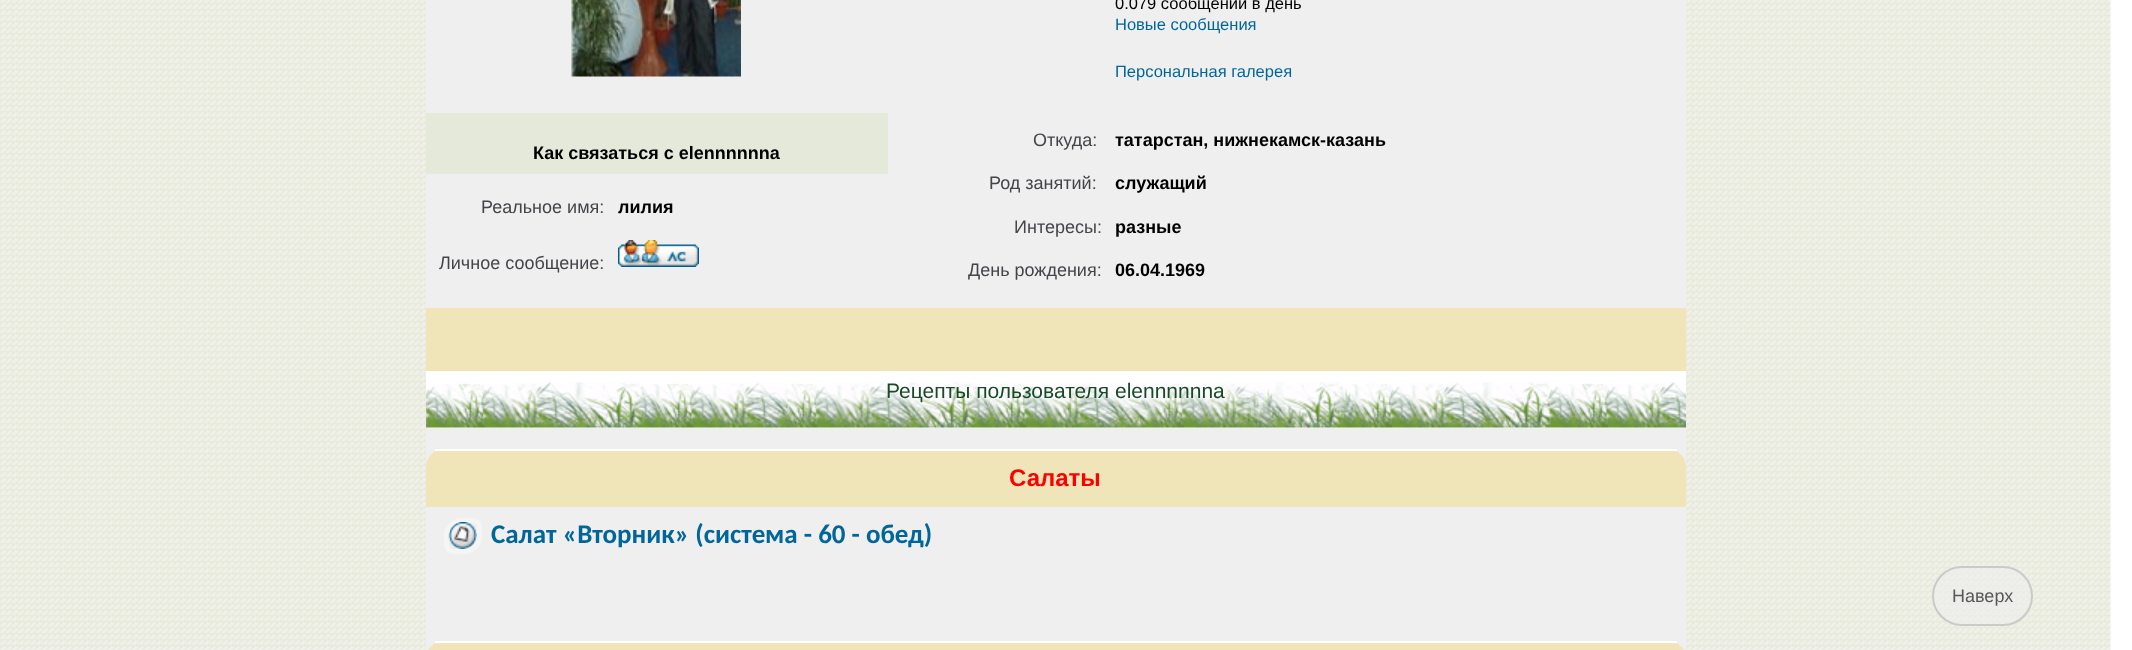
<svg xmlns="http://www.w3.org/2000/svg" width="2132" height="650">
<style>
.a{font:bold 18px Liberation Sans;fill:#000}
.b{font:16.5px Liberation Sans;fill:#000}
.c{font:16.5px Liberation Sans;fill:#069}
.d{font:18px Liberation Sans;fill:#44444a}
.e{font:21px Liberation Sans;fill:#174a27}
.f{font:bold 24px Liberation Sans;fill:#f00}
.g{font:bold 27px Carlito;fill:#069}
.h{font:18px Liberation Sans;fill:#575857}
</style>
<rect width="100%" height="100%" fill="#fff"/>
<image href="1.png" x="0" y="0" width="2111" height="650"/>
<path fill="#f0e5b9" d="M426 308h1260v63H426z"/>
<path fill="#e4e9da" d="M426 113h462v61H426z"/>
<path fill="#efefef" d="M426 0h462v113H426z"/>
<image href="2.png" x="571" y="0" width="170" height="77"/>
<path fill="#efefef" d="M888 0h798v308H888z"/>
<path fill="#efefef" d="M426 174h462v134H426z"/>
<image href="3.png" x="618" y="240" width="81" height="27"/>
<path fill="#efefef" d="M426 428h1260v222H426z"/>
<path fill="#fff" d="M426 371h1260v57H426z"/>
<image href="4.png" x="426" y="382" width="1260" height="46"/>
<path fill="#f0e5b9" d="M444 449h1224c10 0 18 8 18 18v40h-1260v-40c0-10 8-18 18-18z"/>
<path fill="#fff" d="M435 449h1242v2H435z"/>
<path fill="none" stroke="#f5f5f5" stroke-width="5" d="M462 520.5h11c3.5 0 6.5 3 6.5 6.5v9c0 8.5-7 15.5-15.5 15.5h-11c-3.5 0-6.5-3-6.5-6.5v-9c0-8.5 7-15.5 15.5-15.5z"/>
<image href="5.png" x="448" y="522" width="29" height="27"/>
<path fill="#f0e5b9" d="M444 641h1224c10 0 18 8 18 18v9h-1260v-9c0-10 8-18 18-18z"/>
<path fill="#fff" d="M435 641h1242v2H435z"/>
<rect fill="#eeeeee99" x="1932" y="566" width="101" height="60" rx="30"/>
<rect fill="none" stroke="#aaaaaa87" stroke-width="2" x="1933" y="567" width="99" height="58" rx="29"/>
<text class="a" x="533" y="159">Как связаться с elennnnnna</text>
<text class="b" x="1115" y="9">0.079 сообщений в день</text>
<text class="c" x="1115" y="30">Новые сообщения</text>
<text class="c" x="1115" y="77">Персональная галерея</text>
<text class="d" x="1033" y="146">Откуда:</text>
<text class="a" x="1115" y="146">татарстан, нижнекамск-казань</text>
<text class="d" x="989" y="189">Род занятий:</text>
<text class="a" x="1115" y="189">служащий</text>
<text class="d" x="1014" y="233">Интересы:</text>
<text class="a" x="1115" y="233">разные</text>
<text class="d" x="968" y="276">День рождения:</text>
<text class="a" x="1115" y="276">06.04.1969</text>
<text class="d" x="481" y="213">Реальное имя:</text>
<text class="a" x="618" y="213">лилия</text>
<text class="d" x="439" y="269">Личное сообщение:</text>
<text class="e" x="886" y="398">Рецепты пользователя elennnnnna</text>
<text class="f" x="1009" y="486">Салаты</text>
<text class="g" x="491" y="543">Салат «Вторник» (система - 60 - обед)</text>
<text class="h" x="1952" y="602">Наверх</text>
</svg>
